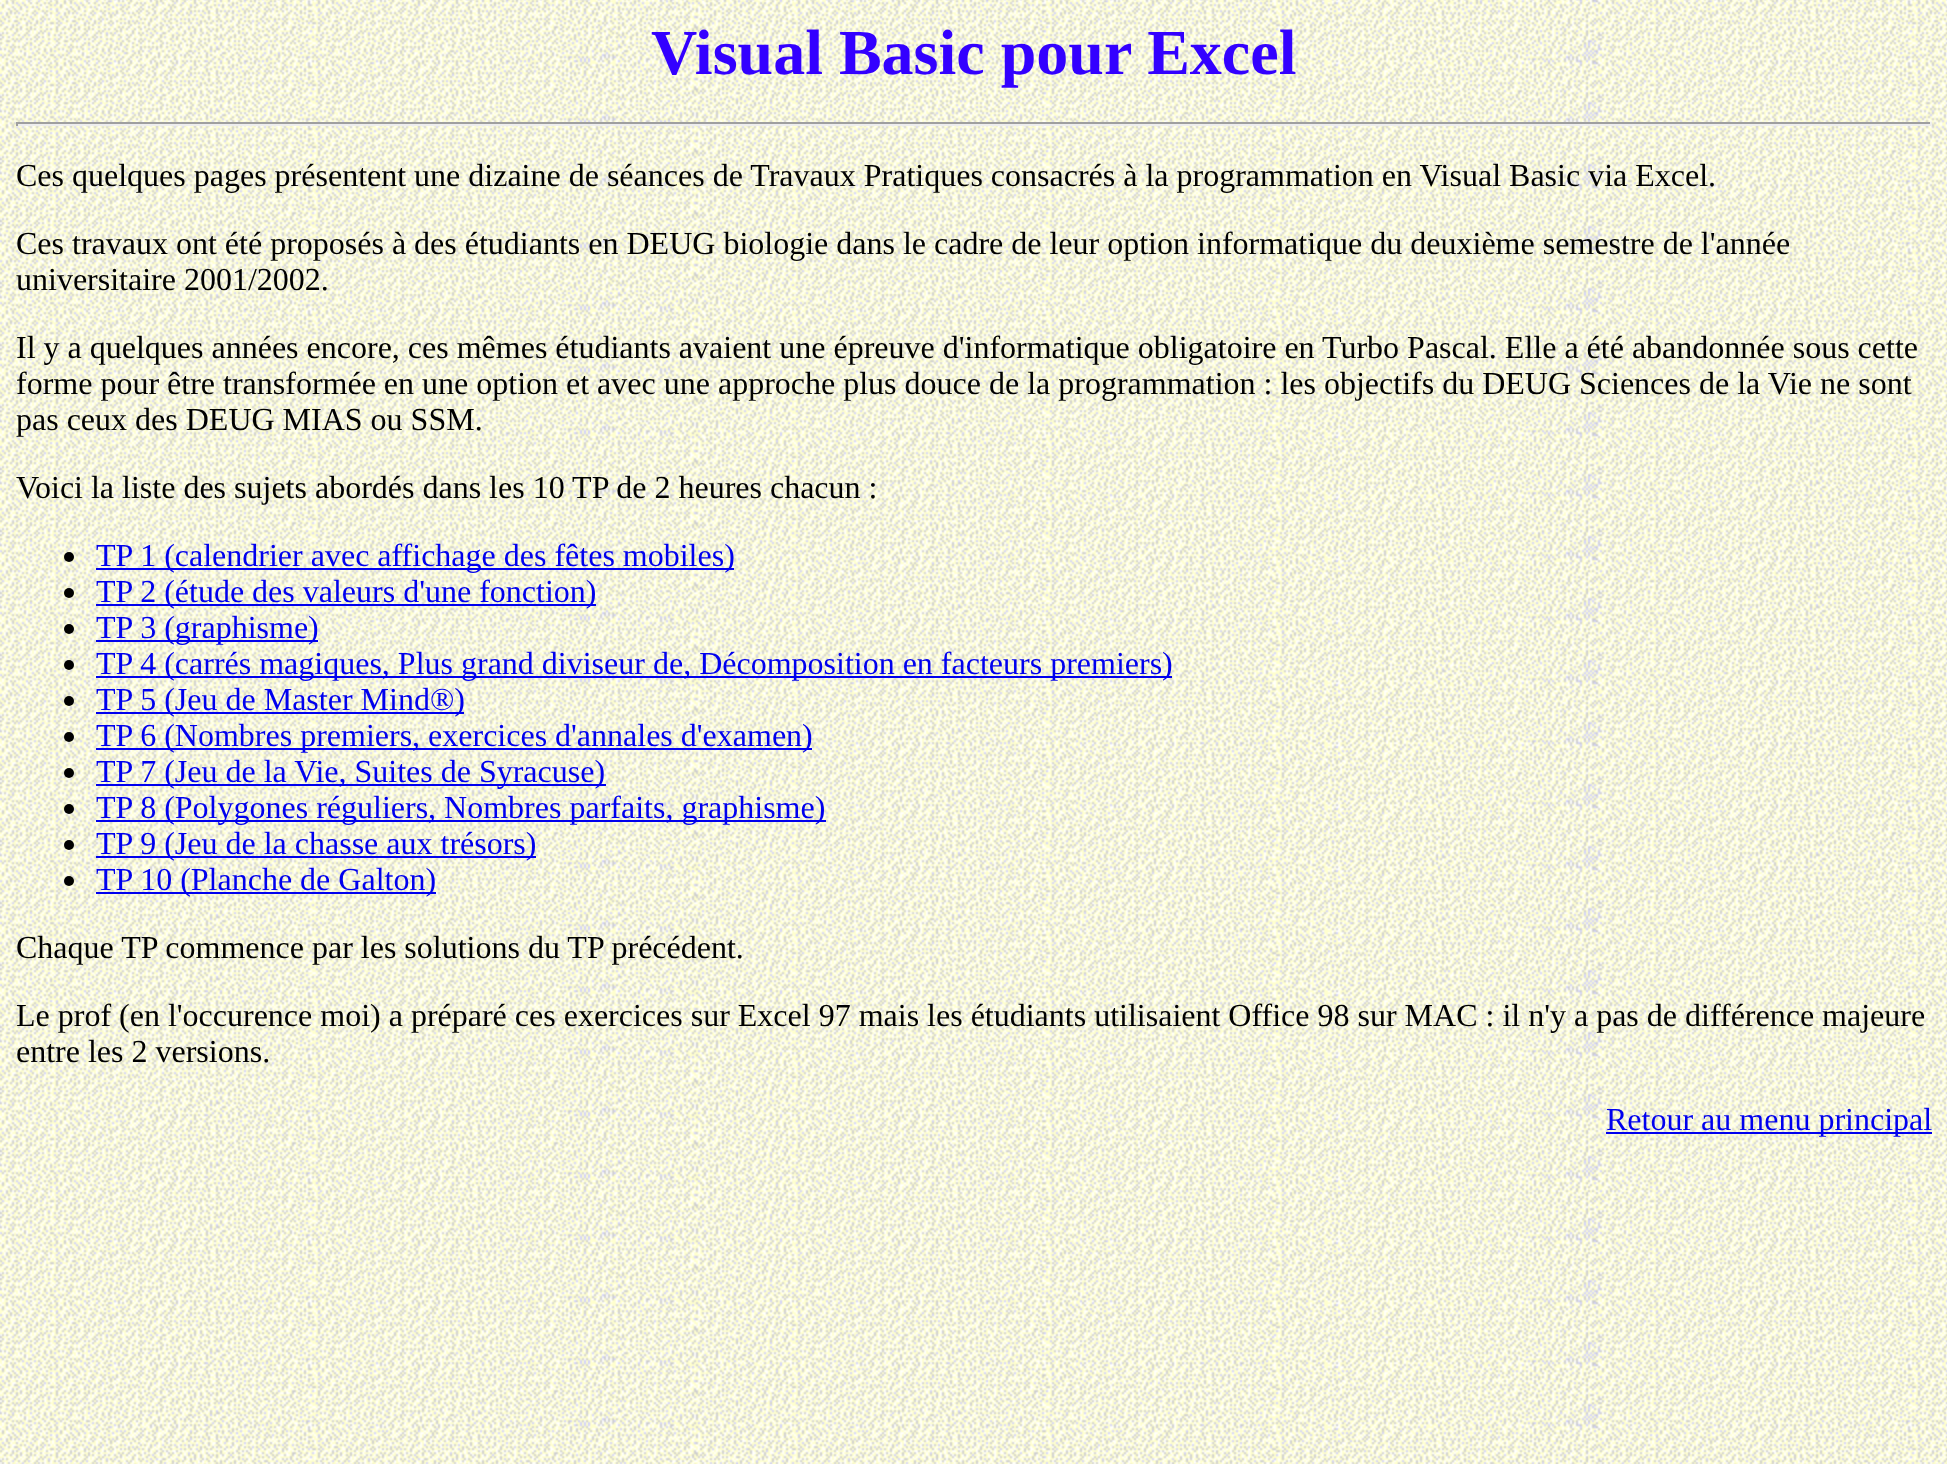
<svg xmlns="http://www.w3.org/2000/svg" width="1947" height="1464">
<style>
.a{font:bold 64px Liberation Serif;fill:#30f}
.b{font:32px Liberation Serif;fill:#000}
.c{font:32px Liberation Serif;fill:#00e}
</style>
<rect width="100%" height="100%" fill="#fff"/>
<image href="1.png" x="0" y="0" width="1947" height="1464"/>
<path fill="#9f9f9f" d="M16 122h1916v2H16z"/>
<path fill="#eee" d="M1930 122h2v4H1930z"/>
<path fill="#eee" d="M16 124h1916v2H16z"/>
<path fill="#9f9f9f" d="M16 122h2v4H16z"/>
<circle fill="#000" cx="69" cy="557" r="5"/>
<path fill="#00e" d="M96 568h638v2H96z"/>
<circle fill="#000" cx="69" cy="593" r="5"/>
<path fill="#00e" d="M96 604h500v2H96z"/>
<circle fill="#000" cx="69" cy="629" r="5"/>
<path fill="#00e" d="M96 640h222v2H96z"/>
<circle fill="#000" cx="69" cy="665" r="5"/>
<path fill="#00e" d="M96 676h1076v2H96z"/>
<circle fill="#000" cx="69" cy="701" r="5"/>
<path fill="#00e" d="M96 712h368v2H96z"/>
<circle fill="#000" cx="69" cy="737" r="5"/>
<path fill="#00e" d="M96 748h716v2H96z"/>
<circle fill="#000" cx="69" cy="773" r="5"/>
<path fill="#00e" d="M96 784h510v2H96z"/>
<circle fill="#000" cx="69" cy="809" r="5"/>
<path fill="#00e" d="M96 820h730v2H96z"/>
<circle fill="#000" cx="69" cy="845" r="5"/>
<path fill="#00e" d="M96 856h440v2H96z"/>
<circle fill="#000" cx="69" cy="881" r="5"/>
<path fill="#00e" d="M96 892h340v2H96z"/>
<path fill="#00e" d="M1606 1132h326v2H1606z"/>
<text class="a" x="651" y="74">Visual Basic pour Excel</text>
<text class="b" x="16" y="186">Ces quelques pages présentent une dizaine de séances de Travaux Pratiques consacrés à la programmation en Visual Basic via Excel.</text>
<text class="b" x="16" y="254">Ces travaux ont été proposés à des étudiants en DEUG biologie dans le cadre de leur option informatique du deuxième semestre de l'année</text>
<text class="b" x="16" y="290">universitaire 2001/2002.</text>
<text class="b" x="16" y="358">Il y a quelques années encore, ces mêmes étudiants avaient une épreuve d'informatique obligatoire en Turbo Pascal. Elle a été abandonnée sous cette</text>
<text class="b" x="16" y="394">forme pour être transformée en une option et avec une approche plus douce de la programmation : les objectifs du DEUG Sciences de la Vie ne sont</text>
<text class="b" x="16" y="430">pas ceux des DEUG MIAS ou SSM.</text>
<text class="b" x="16" y="498">Voici la liste des sujets abordés dans les 10 TP de 2 heures chacun :</text>
<text class="c" x="96" y="566">TP 1 (calendrier avec affichage des fêtes mobiles)</text>
<text class="c" x="96" y="602">TP 2 (étude des valeurs d'une fonction)</text>
<text class="c" x="96" y="638">TP 3 (graphisme)</text>
<text class="c" x="96" y="674">TP 4 (carrés magiques, Plus grand diviseur de, Décomposition en facteurs premiers)</text>
<text class="c" x="96" y="710">TP 5 (Jeu de Master Mind®)</text>
<text class="c" x="96" y="746">TP 6 (Nombres premiers, exercices d'annales d'examen)</text>
<text class="c" x="96" y="782">TP 7 (Jeu de la Vie, Suites de Syracuse)</text>
<text class="c" x="96" y="818">TP 8 (Polygones réguliers, Nombres parfaits, graphisme)</text>
<text class="c" x="96" y="854">TP 9 (Jeu de la chasse aux trésors)</text>
<text class="c" x="96" y="890">TP 10 (Planche de Galton)</text>
<text class="b" x="16" y="958">Chaque TP commence par les solutions du TP précédent.</text>
<text class="b" x="16" y="1026">Le prof (en l'occurence moi) a préparé ces exercices sur Excel 97 mais les étudiants utilisaient Office 98 sur MAC : il n'y a pas de différence majeure</text>
<text class="b" x="16" y="1062">entre les 2 versions.</text>
<text class="c" x="1606" y="1130">Retour au menu principal</text>
</svg>
